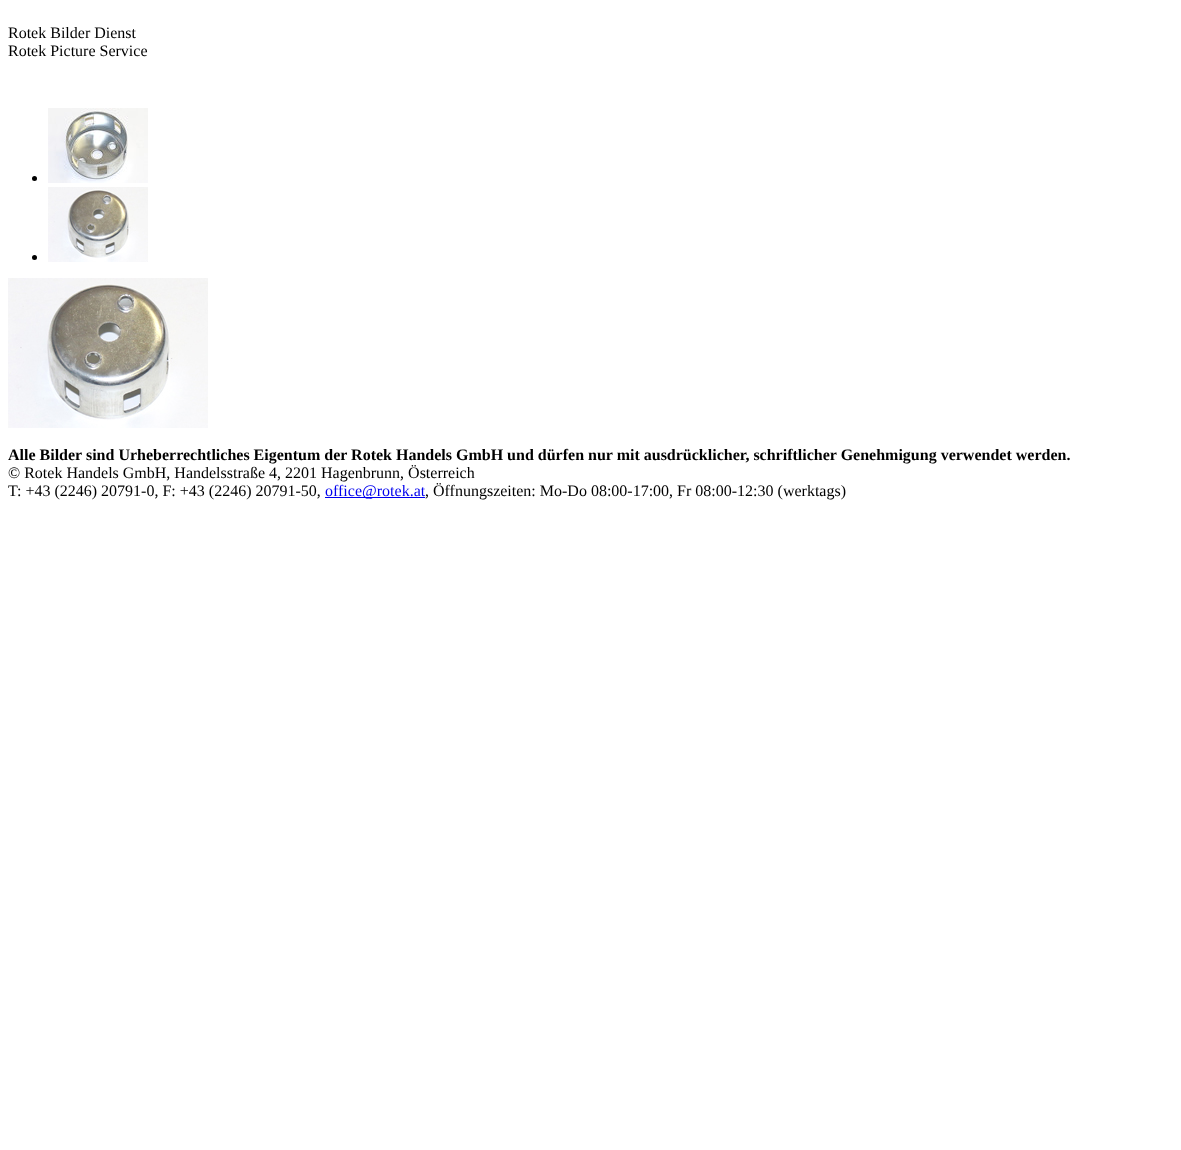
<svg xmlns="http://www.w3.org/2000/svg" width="1181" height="1150">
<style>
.a{font:16px Liberation Serif;fill:#000}
.b{font:bold 16px Liberation Serif;fill:#000}
.c{font:16px Liberation Serif;fill:#00e}
</style>
<rect width="100%" height="100%" fill="#fff"/>
<circle fill="#000" cx="34.5" cy="178.5" r="2.5"/>
<image href="1.png" x="48" y="108" width="100" height="75"/>
<circle fill="#000" cx="34.5" cy="257.5" r="2.5"/>
<image href="2.png" x="48" y="187" width="100" height="75"/>
<image href="3.png" x="8" y="278" width="200" height="150"/>
<path fill="#00e" d="M325 497h100v1H325z"/>
<text class="a" x="8" y="38">Rotek Bilder Dienst</text>
<text class="a" x="8" y="56">Rotek Picture Service</text>
<text class="b" x="8" y="460">Alle Bilder sind Urheberrechtliches Eigentum der Rotek Handels GmbH und dürfen nur mit ausdrücklicher, schriftlicher Genehmigung verwendet werden.</text>
<text class="a" x="8" y="478">© Rotek Handels GmbH, Handelsstraße 4, 2201 Hagenbrunn, Österreich</text>
<text class="a" x="8" y="496">T: +43 (2246) 20791-0, F: +43 (2246) 20791-50,</text>
<text class="c" x="325" y="496">office@rotek.at</text>
<text class="a" x="425" y="496">, Öffnungszeiten: Mo-Do 08:00-17:00, Fr 08:00-12:30 (werktags)</text>
</svg>
